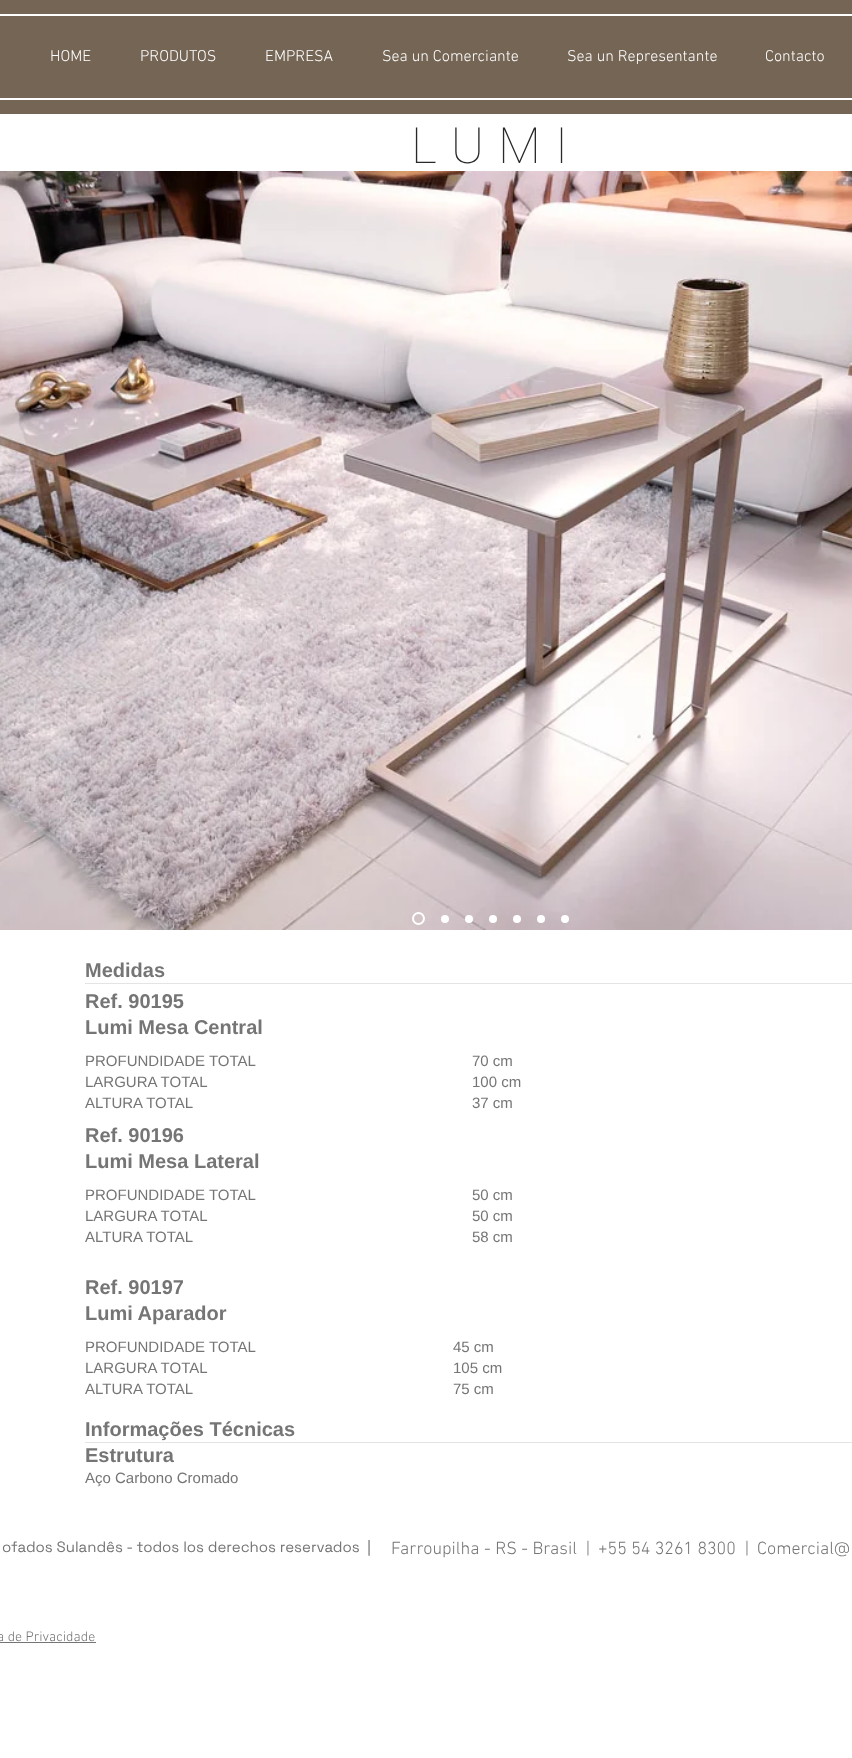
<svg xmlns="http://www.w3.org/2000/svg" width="852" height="1758">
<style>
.a{font:300 16px 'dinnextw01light';fill:#fff}
.b{font:100 50px Roboto;letter-spacing:1px;fill:#292929}
.c{font:bold 20px Liberation Sans;fill:#757575}
.d{font:15px Liberation Sans;fill:#757575}
.e{font:15px Space Grotesk;fill:#757575}
.f{font:300 18px 'dinnextw01light';fill:#757575}
.g{font:300 14px 'dinnextw01light';fill:#757575}
</style>
<rect width="100%" height="100%" fill="#fff"/>
<path fill="#746554" d="M0 0h852v114H0z"/>
<path fill="#fff" d="M0 14h852v2H0z"/>
<path fill="#fff" d="M0 98h852v2H0z"/>
<image href="1.png" x="0" y="171" width="852" height="759"/>
<circle fill="none" stroke="#fff" stroke-width="2" cx="418.5" cy="918.5" r="5.5"/>
<circle fill="#fff" cx="445" cy="919" r="4"/>
<circle fill="#fff" cx="469" cy="919" r="4"/>
<circle fill="#fff" cx="493" cy="919" r="4"/>
<circle fill="#fff" cx="517" cy="919" r="4"/>
<circle fill="#fff" cx="541" cy="919" r="4"/>
<circle fill="#fff" cx="565" cy="919" r="4"/>
<path fill="#e4e4e4" d="M85 983h767v1H85z"/>
<path fill="#e4e4e4" d="M85 1442h767v1H85z"/>
<path fill="#757575" d="M0 1642h96v1H0z"/>
<text class="a" x="50" y="61">HOME</text>
<text class="a" x="140" y="61">PRODUTOS</text>
<text class="a" x="265" y="61">EMPRESA</text>
<text class="a" x="382" y="61">Sea un Comerciante</text>
<text class="a" x="567" y="61">Sea un Representante</text>
<text class="a" x="765" y="61">Contacto</text>
<text class="b" x="411" y="163">L U M I</text>
<text class="c" x="85" y="977">Medidas</text>
<text class="c" x="85" y="1008">Ref. 90195</text>
<text class="c" x="85" y="1034">Lumi Mesa Central</text>
<text class="d" x="85" y="1066">PROFUNDIDADE TOTAL</text>
<text class="d" x="85" y="1087">LARGURA TOTAL</text>
<text class="d" x="85" y="1108">ALTURA TOTAL</text>
<text class="d" x="472" y="1066">70 cm</text>
<text class="d" x="472" y="1087">100 cm</text>
<text class="d" x="472" y="1108">37 cm</text>
<text class="c" x="85" y="1142">Ref. 90196</text>
<text class="c" x="85" y="1168">Lumi Mesa Lateral</text>
<text class="d" x="85" y="1200">PROFUNDIDADE TOTAL</text>
<text class="d" x="85" y="1221">LARGURA TOTAL</text>
<text class="d" x="85" y="1242">ALTURA TOTAL</text>
<text class="d" x="472" y="1200">50 cm</text>
<text class="d" x="472" y="1221">50 cm</text>
<text class="d" x="472" y="1242">58 cm</text>
<text class="c" x="85" y="1294">Ref. 90197</text>
<text class="c" x="85" y="1320">Lumi Aparador</text>
<text class="d" x="85" y="1352">PROFUNDIDADE TOTAL</text>
<text class="d" x="85" y="1373">LARGURA TOTAL</text>
<text class="d" x="85" y="1394">ALTURA TOTAL</text>
<text class="d" x="453" y="1352">45 cm</text>
<text class="d" x="453" y="1373">105 cm</text>
<text class="d" x="453" y="1394">75 cm</text>
<text class="c" x="85" y="1436">Informações Técnicas</text>
<text class="c" x="85" y="1462">Estrutura</text>
<text class="d" x="85" y="1483">Aço Carbono Cromado</text>
<text class="e" xml:space="preserve" x="2" y="1552">ofados Sulandês - todos los derechos reservados  |</text>
<text class="f" xml:space="preserve" x="391" y="1554">Farroupilha - RS - Brasil  |</text>
<text class="f" xml:space="preserve" x="598" y="1554">+55 54 3261 8300  |</text>
<text class="f" x="757" y="1554">Comercial@</text>
<text class="g" x="-3" y="1641">a de Privacidade</text>
</svg>
